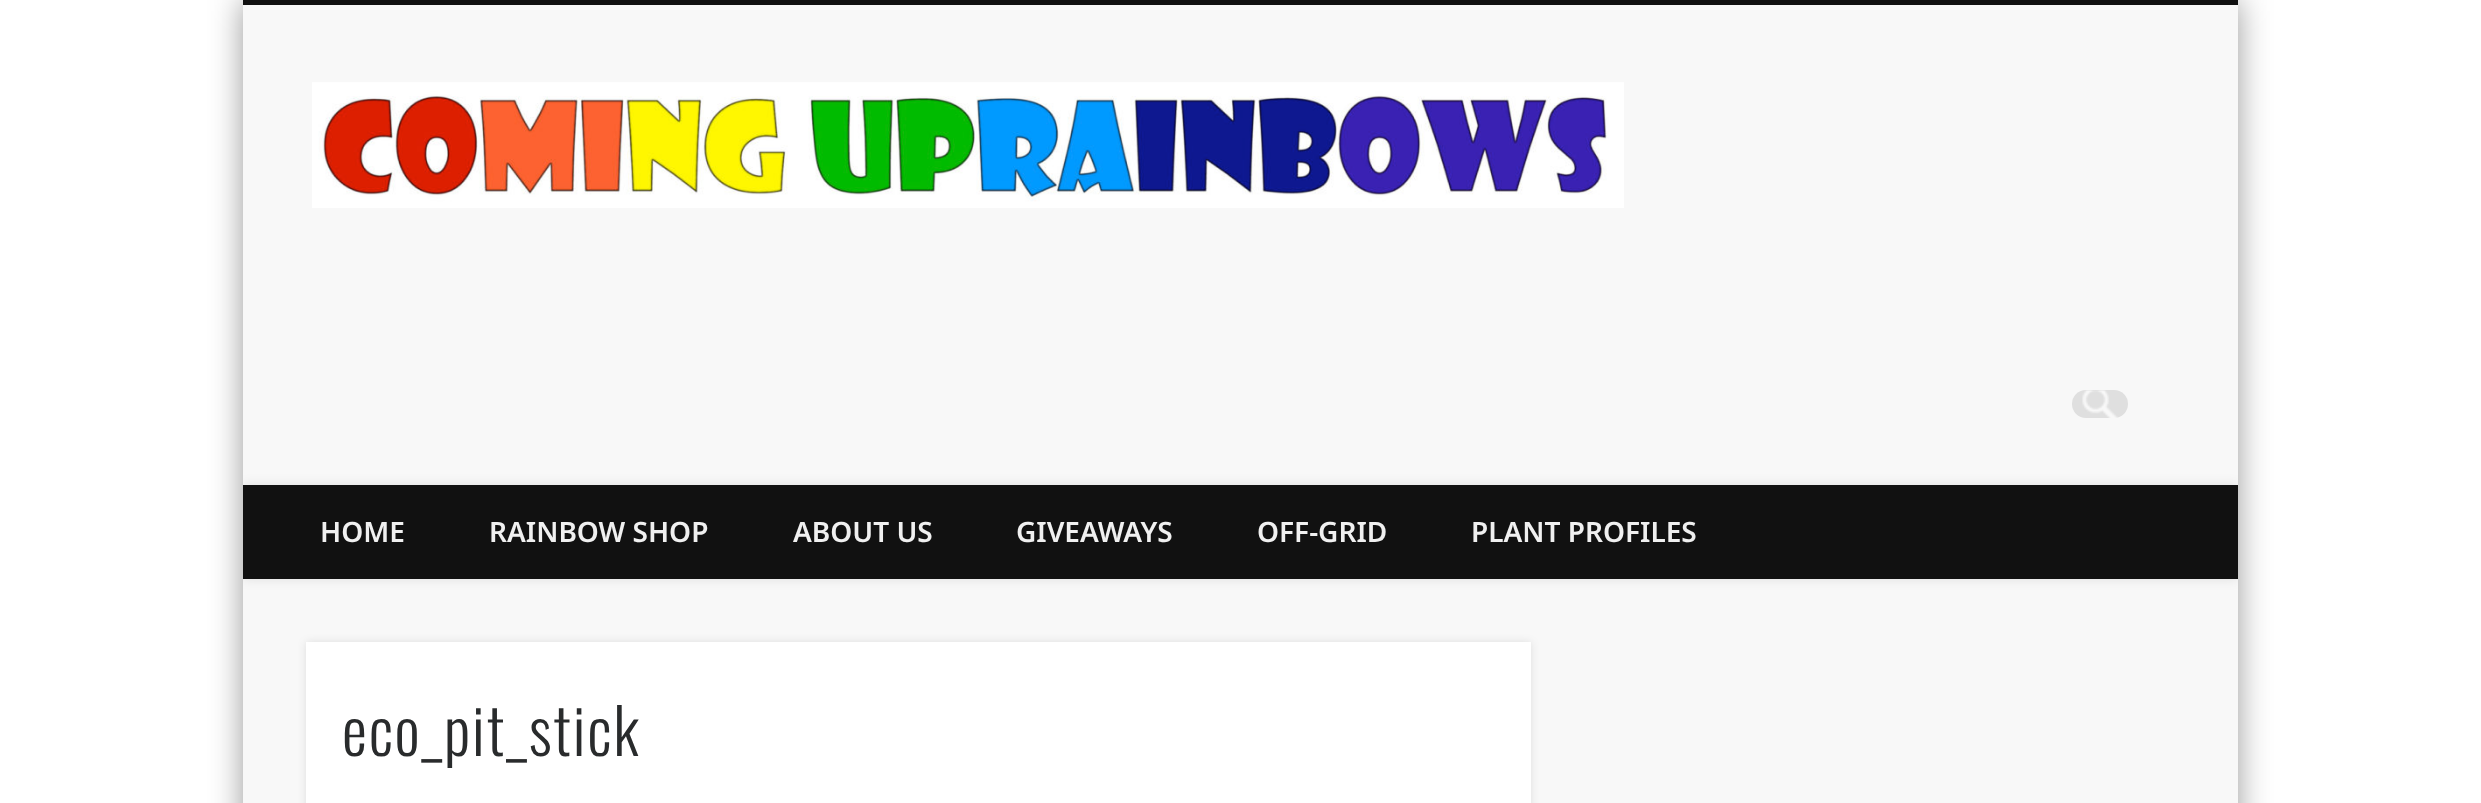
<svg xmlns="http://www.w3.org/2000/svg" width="2481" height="803">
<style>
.a{font:600 28px Noto Sans;fill:#f0f0f0}
.b{font:300 63px Oswald;letter-spacing:1.75px;fill:#292b2c}
</style>
<defs>
<clipPath id="clip1"><path d="M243 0h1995v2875H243z"/></clipPath>
</defs>
<rect width="100%" height="100%" fill="#fff"/>
<path fill="#00000066" filter="blur(16px)" d="M243 0h1995v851H243z"/>
<path fill="#f8f8f8" d="M243 5h1995v798H243z"/>
<path fill="#111" d="M243 0h1995v5H243z"/>
<image href="1.png" x="312" y="82" width="1312" height="126"/>
<rect fill="#dfdfdf" x="2072" y="390" width="56" height="28" rx="14"/>
<image href="2.png" x="2082" y="390" width="36" height="28"/>
<g clip-path="url(#clip1)">
<path fill="#0000001a" filter="blur(6px)" d="M243 485h1995v94H243z"/>
</g>
<path fill="#111" d="M243 485h1995v94H243z"/>
<path fill="#0000001a" filter="blur(4.5px)" d="M306 642h1225v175H306z"/>
<path fill="#fff" d="M306 642h1225v161H306z"/>
<text class="a" x="320" y="542">HOME</text>
<text class="a" x="489" y="542">RAINBOW SHOP</text>
<text class="a" x="793" y="542">ABOUT US</text>
<text class="a" x="1016" y="542">GIVEAWAYS</text>
<text class="a" x="1257" y="542">OFF-GRID</text>
<text class="a" x="1471" y="542">PLANT PROFILES</text>
<text class="b" x="342" y="756">eco_pit_stick</text>
</svg>
